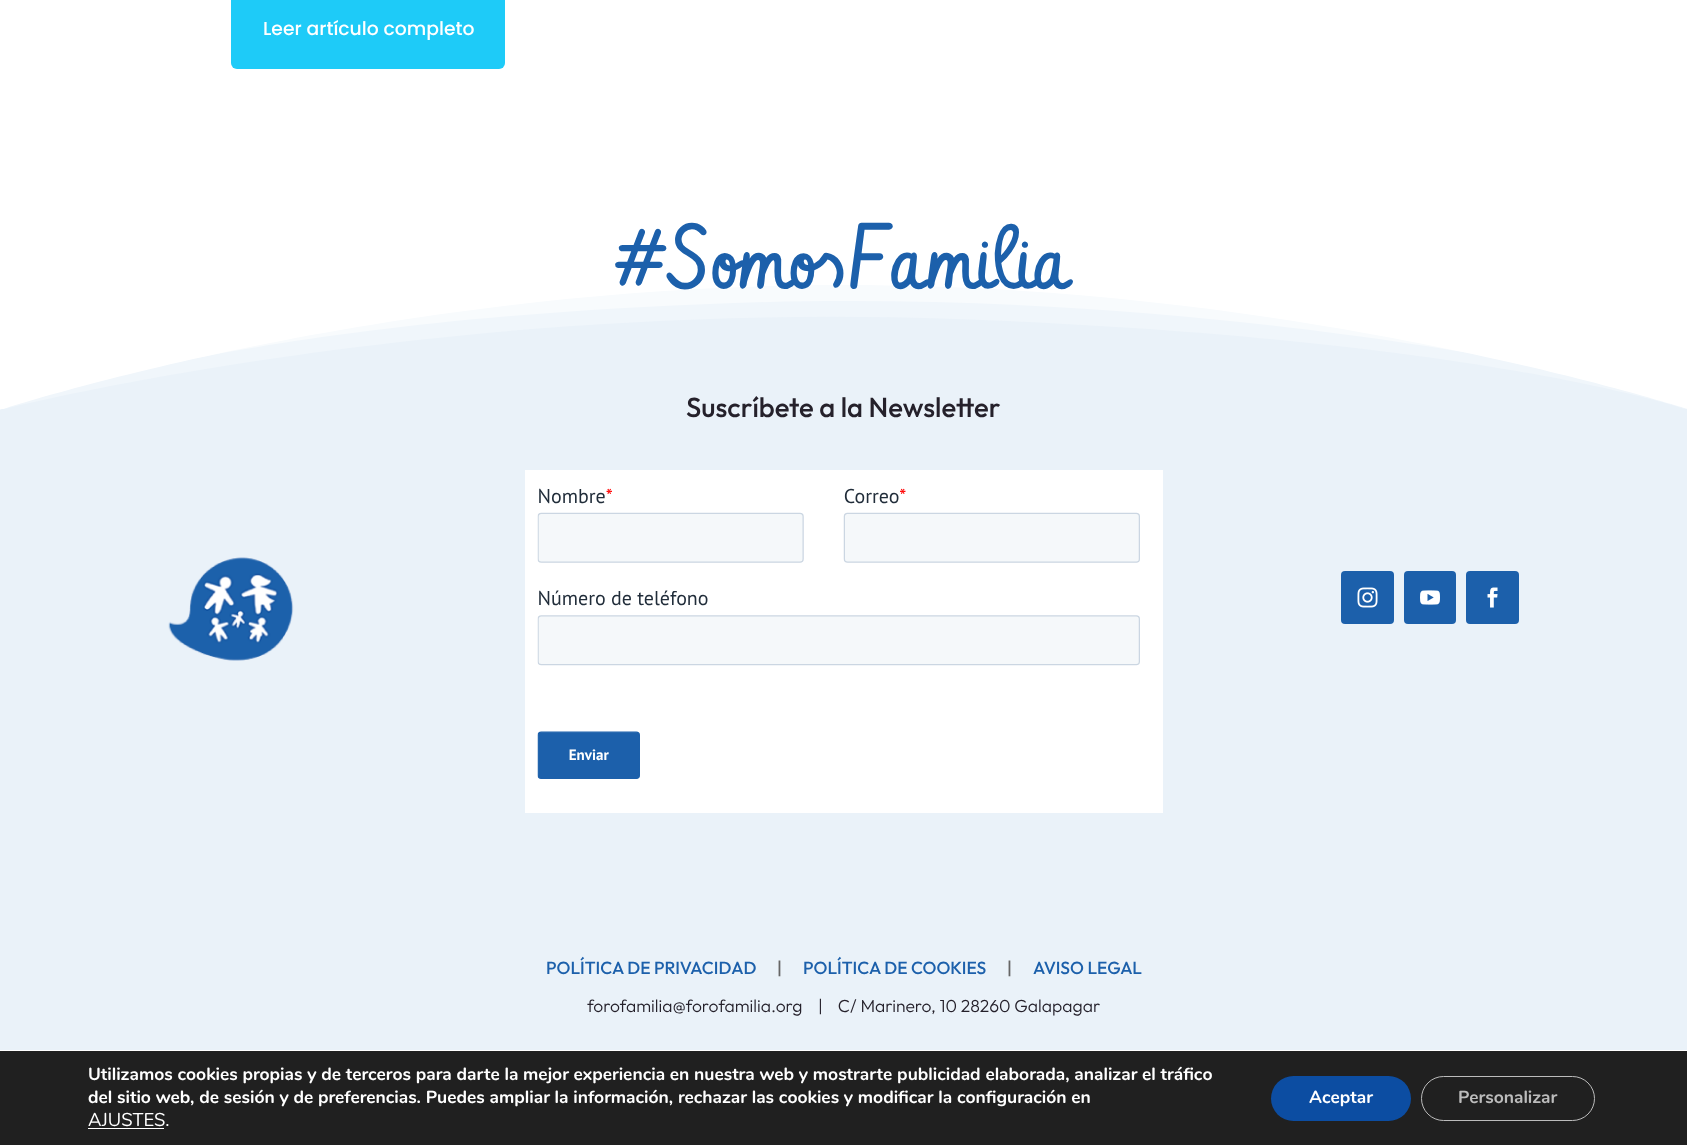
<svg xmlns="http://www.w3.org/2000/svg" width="1687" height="1145">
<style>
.a{font:500 18.75px Poppins;fill:#fff}
.b{font:87.5px Vibur;fill:#1c60ab}
.c{font:500 27.5px Outfit;fill:#25212b}
.d{font:500 17.5px Outfit;fill:#1c60ab}
.e{font:500 17.5px Outfit;fill:#666}
.f{font:300 17.5px Outfit;fill:#25212b}
.g{font:bold 17.5px Nunito;fill:#fff}
.h{font:18.5px Nunito;fill:#fff}
.i{font:bold 17.5px Nunito;fill:#bcbcbc}
</style>
<defs>
<clipPath id="clip1"><path d="M0 284h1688v125H0z"/></clipPath>
</defs>
<rect width="100%" height="100%" fill="#fff"/>
<rect fill="#1ecbf8" x="231" y="-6" width="274" height="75" rx="6"/>
<path fill="#eaf2f9" d="M0 316h1687v734H0z"/>
<g clip-path="url(#clip1)">
<path fill="#f0f6fb" d="M956 319c-527-19-956 91-956 91v-125h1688v125c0 0-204-72-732-91z"/>
</g>
<path fill="#f8fbfd" d="M734 303c523-18 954 94 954 94v-112h-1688v125c0 0 210-89 734-107z"/>
<g clip-path="url(#clip1)">
<path fill="#fff" d="M844 285c466 0 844 125 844 124v-125h-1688v126c0 0 378-125 844-125z"/>
</g>
<path fill="#fff" d="M525 470h638v343H525z"/>
<image href="1.png" x="537" y="488" width="603" height="291"/>
<image href="2.png" x="168" y="557" width="126" height="104"/>
<rect fill="#1c60ab" x="1341" y="571" width="53" height="53" rx="4"/>
<image href="3.png" x="1357" y="587" width="21" height="21"/>
<rect fill="#1c60ab" x="1404" y="571" width="52" height="53" rx="4"/>
<image href="4.png" x="1420" y="590" width="20" height="15"/>
<rect fill="#1c60ab" x="1466" y="571" width="53" height="53" rx="4"/>
<image href="5.png" x="1487" y="587" width="11" height="21"/>
<path fill="#202020" d="M0 1051h1687v94H0z"/>
<path fill="#fff" d="M88 1128h76v1H88z"/>
<rect fill="#0c4da2" x="1271" y="1076" width="140" height="45" rx="22.5"/>
<rect fill="none" stroke="#bcbcbc" x="1421.5" y="1076.5" width="173" height="44" rx="22"/>
<text class="a" x="263" y="35">Leer artículo completo</text>
<text class="b" x="615" y="289">#Somos</text>
<text class="b" x="848" y="289">Familia</text>
<text class="c" x="686" y="417">Suscríbete a la Newsletter</text>
<text class="d" x="546" y="974">POLÍTICA DE PRIVACIDAD</text>
<text class="e" x="777" y="974">|</text>
<text class="d" x="803" y="974">POLÍTICA DE COOKIES</text>
<text class="e" x="1007" y="974">|</text>
<text class="d" x="1033" y="974">AVISO LEGAL</text>
<text class="f" x="587" y="1012">forofamilia@forofamilia.org</text>
<text class="f" xml:space="preserve" x="818" y="1012">|    C/ Marinero, 10 28260 Galapagar</text>
<text class="g" x="88" y="1080">Utilizamos cookies propias y de terceros para darte la mejor experiencia en nuestra web y mostrarte publicidad elaborada, analizar el tráfico</text>
<text class="g" x="88" y="1103">del sitio web, de sesión y de preferencias. Puedes ampliar la información, rechazar las cookies y modificar la configuración en</text>
<text class="h" x="88" y="1126">AJUSTES.</text>
<text class="g" x="1309" y="1103">Aceptar</text>
<text class="i" x="1458" y="1103">Personalizar</text>
</svg>
